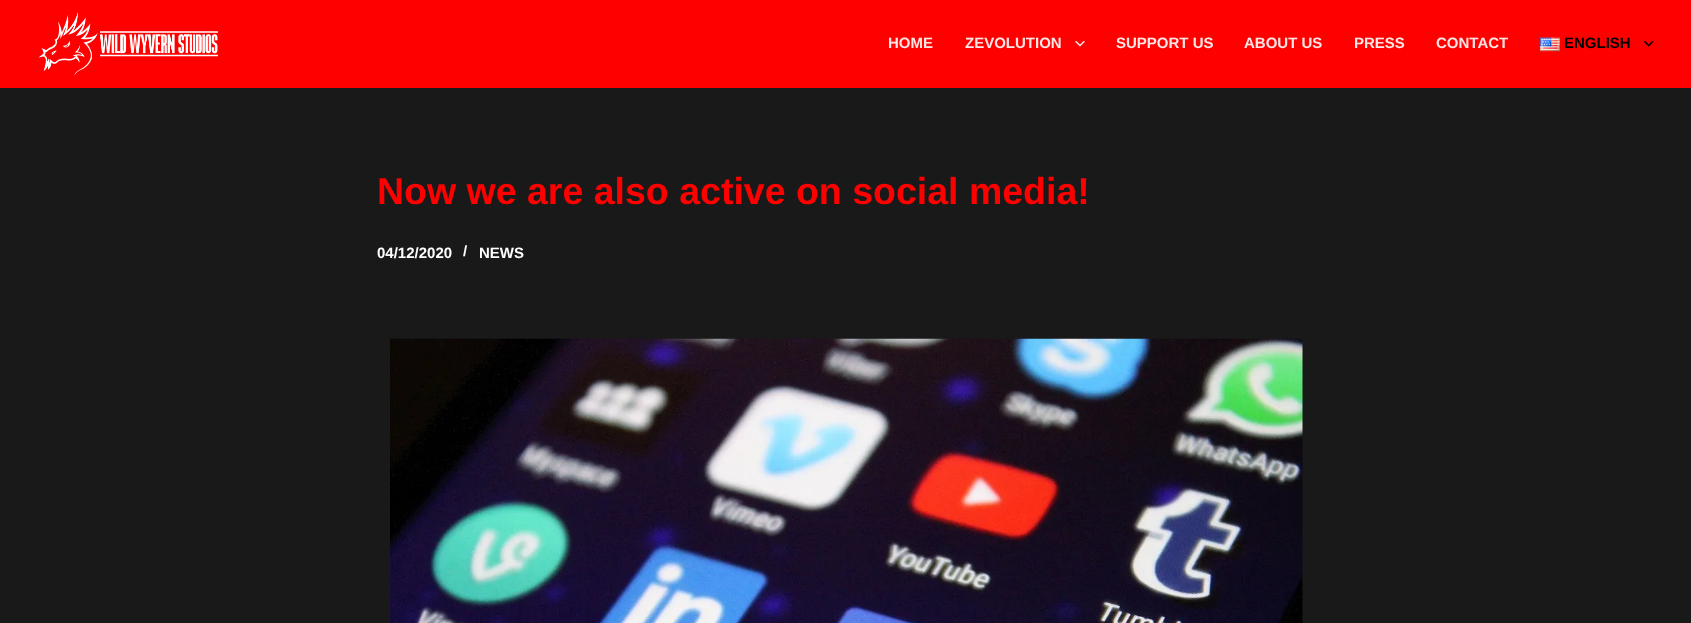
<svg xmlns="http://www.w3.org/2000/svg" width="1691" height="623">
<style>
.a{font:bold 15px Liberation Sans;fill:#ffe6e6}
.b{font:bold 15px Liberation Sans;fill:#000}
.c{font:bold 37.5px Liberation Sans;fill:#f00}
.d{font:bold 15px Liberation Sans;fill:#fff}
</style>
<rect width="100%" height="100%" fill="#19191a"/>
<path fill="#f00" d="M0 0h1691v88H0z"/>
<image href="1.png" x="38" y="12" width="180" height="63"/>
<image href="2.png" x="1075" y="41" width="10" height="6"/>
<image href="3.png" x="1540" y="37" width="20" height="15"/>
<image href="4.png" x="1644" y="41" width="10" height="6"/>
<image href="5.png" x="390" y="338" width="913" height="285"/>
<text class="a" x="888" y="48">HOME</text>
<text class="a" x="965" y="48">ZEVOLUTION</text>
<text class="a" x="1116" y="48">SUPPORT US</text>
<text class="a" x="1244" y="48">ABOUT US</text>
<text class="a" x="1354" y="48">PRESS</text>
<text class="a" x="1436" y="48">CONTACT</text>
<text class="b" x="1564" y="48">ENGLISH</text>
<text class="c" x="377" y="204">Now we are also active on social media!</text>
<text class="d" x="377" y="258">04/12/2020</text>
<text class="d" x="463" y="256">/</text>
<text class="d" x="479" y="258">NEWS</text>
</svg>
